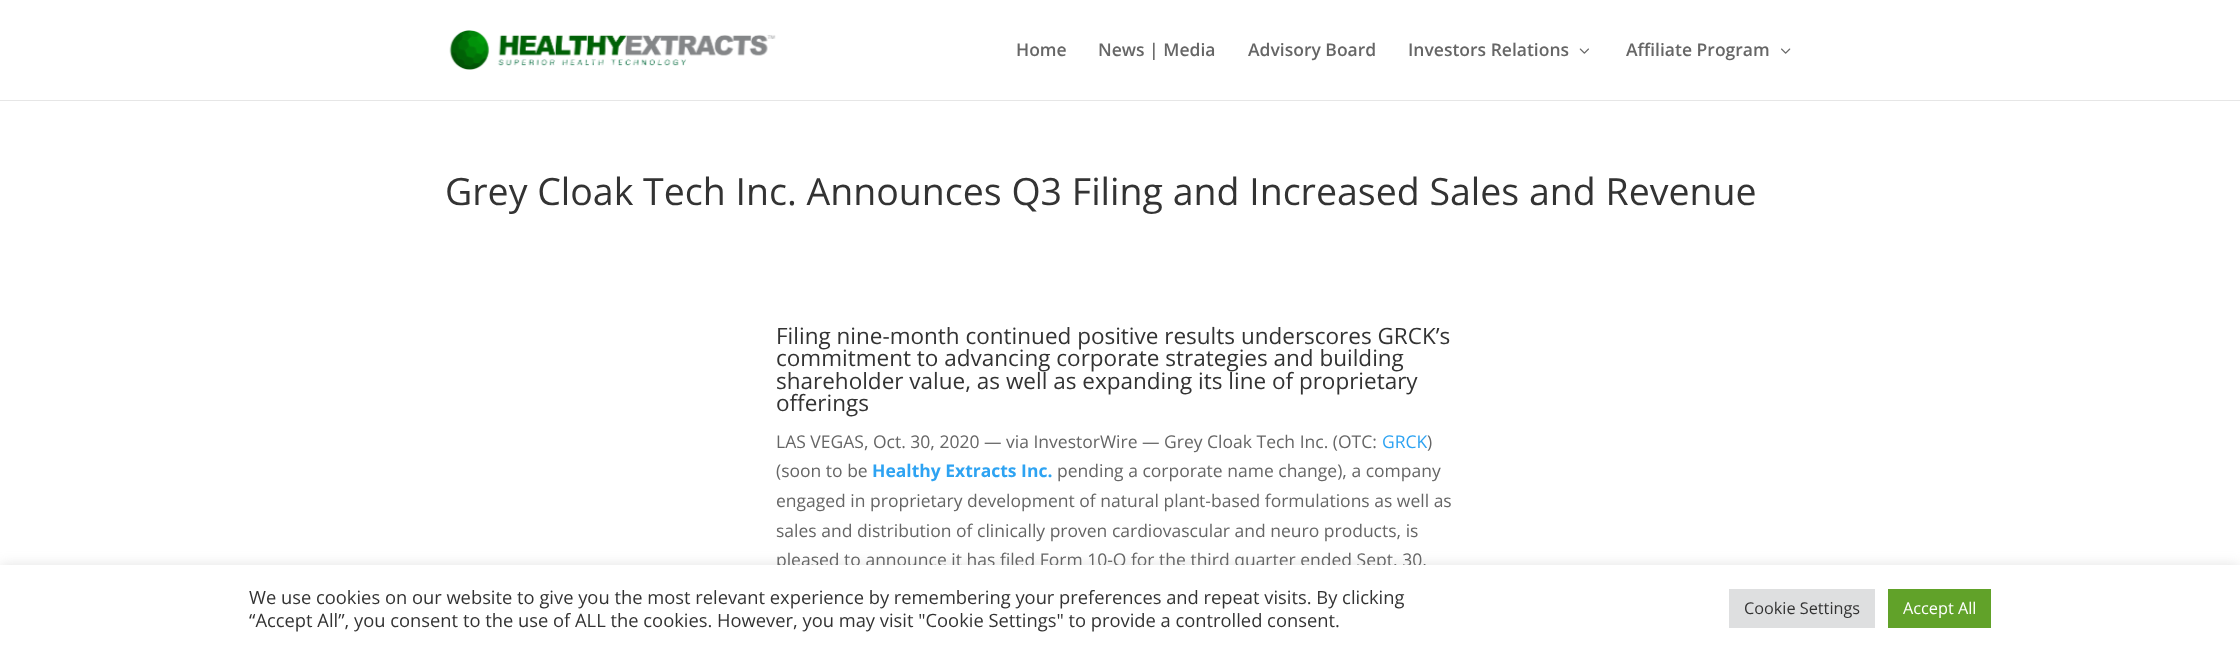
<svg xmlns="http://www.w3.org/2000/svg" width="2240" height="651">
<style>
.a{font:600 17.5px Open Sans;fill:#666}
.b{font:37.5px Open Sans;fill:#333}
.c{font:22.5px Open Sans;fill:#333}
.d{font:17.5px Open Sans;fill:#666}
.e{font:17.5px Open Sans;fill:#2ea3f2}
.f{font:bold 17.5px Open Sans;fill:#2ea3f2}
.g{font:18.33px Open Sans;fill:#333}
.h{font:16.25px Open Sans;fill:#333}
.i{font:16.25px Open Sans;fill:#fff}
</style>
<rect width="100%" height="100%" fill="#fff"/>
<path fill="#e6e6e6" d="M0 100h2240v1H0z"/>
<image href="1.png" x="449" y="30" width="327" height="40"/>
<image href="2.png" x="1579" y="48" width="10" height="6"/>
<image href="3.png" x="1781" y="48" width="10" height="6"/>
<path fill="#acabab4d" filter="blur(6px)" d="M0 564h2240v86H0z"/>
<text class="a" x="1016" y="56">Home</text>
<text class="a" x="1098" y="56">News | Media</text>
<text class="a" x="1248" y="56">Advisory Board</text>
<text class="a" x="1408" y="56">Investors Relations</text>
<text class="a" x="1626" y="56">Affiliate Program</text>
<text class="b" x="445" y="205">Grey Cloak Tech Inc. Announces Q3 Filing and Increased Sales and Revenue</text>
<text class="c" x="776" y="344">Filing nine-month continued positive results underscores GRCK’s</text>
<text class="c" x="776" y="366">commitment to advancing corporate strategies and building</text>
<text class="c" x="776" y="389">shareholder value, as well as expanding its line of proprietary</text>
<text class="c" x="776" y="411">offerings</text>
<text class="d" x="776" y="448">LAS VEGAS, Oct. 30, 2020 — via InvestorWire — Grey Cloak Tech Inc. (OTC:</text>
<text class="e" x="1382" y="448">GRCK</text>
<text class="d" x="1427" y="448">)</text>
<text class="d" x="776" y="477">(soon to be</text>
<text class="f" x="872" y="477">Healthy Extracts Inc.</text>
<text class="d" x="1057" y="477">pending a corporate name change), a company</text>
<text class="d" x="776" y="507">engaged in proprietary development of natural plant-based formulations as well as</text>
<text class="d" x="776" y="537">sales and distribution of clinically proven cardiovascular and neuro products, is</text>
<text class="d" x="776" y="566">pleased to announce it has filed Form 10-Q for the third quarter ended Sept. 30,</text>
<path fill="#fff" d="M0 565h2240v86H0z"/>
<text class="g" x="249" y="604">We use cookies on our website to give you the most relevant experience by remembering your preferences and repeat visits. By clicking</text>
<text class="g" x="249" y="627">“Accept All”, you consent to the use of ALL the cookies. However, you may visit "Cookie Settings" to provide a controlled consent.</text>
<path fill="#dedfe0" d="M1729 589h146v39H1729z"/>
<text class="h" x="1744" y="614">Cookie Settings</text>
<path fill="#61a229" d="M1888 589h103v39H1888z"/>
<text class="i" x="1903" y="614">Accept All</text>
</svg>
